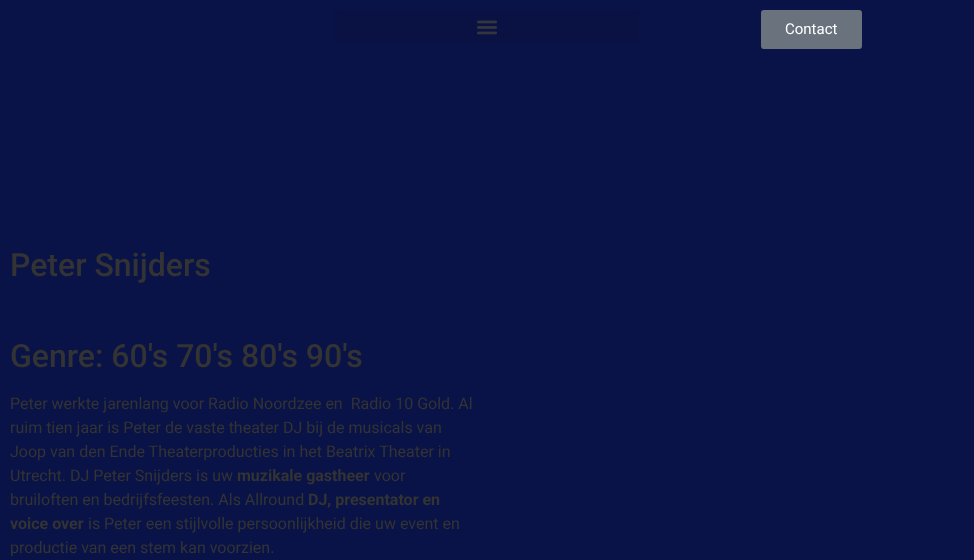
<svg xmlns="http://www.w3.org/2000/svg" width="974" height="560">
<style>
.a{font:15px Roboto;fill:#fff}
.b{font:500 32px Roboto;fill:#333}
.c{font:16px Roboto;fill:#333}
.d{font:bold 16px Roboto;fill:#333}
</style>
<rect width="100%" height="100%" fill="#0a1347"/>
<rect fill="#0a1243" x="335" y="10" width="304" height="33" rx="3"/>
<image href="1.png" x="477" y="20" width="20" height="15"/>
<rect fill="#69727d" x="761" y="10" width="101" height="39" rx="3"/>
<text class="a" x="785" y="34">Contact</text>
<text class="b" x="10" y="276">Peter Snijders</text>
<text class="b" x="10" y="367">Genre: 60's 70's 80's 90's</text>
<text class="c" xml:space="preserve" x="10" y="409">Peter werkte jarenlang voor Radio Noordzee en  Radio 10 Gold. Al</text>
<text class="c" x="10" y="433">ruim tien jaar is Peter de vaste theater DJ bij de musicals van</text>
<text class="c" x="10" y="457">Joop van den Ende Theaterproducties in het Beatrix Theater in</text>
<text class="c" x="10" y="481">Utrecht. DJ Peter Snijders is uw</text>
<text class="d" x="237" y="481">muzikale gastheer</text>
<text class="c" x="374" y="481">voor</text>
<text class="c" x="10" y="505">bruiloften en bedrijfsfeesten. Als Allround</text>
<text class="d" x="308" y="505">DJ, presentator en</text>
<text class="d" x="10" y="529">voice over</text>
<text class="c" x="88" y="529">is Peter een stijlvolle persoonlijkheid die uw event en</text>
<text class="c" x="10" y="553">productie van een stem kan voorzien.</text>
</svg>
